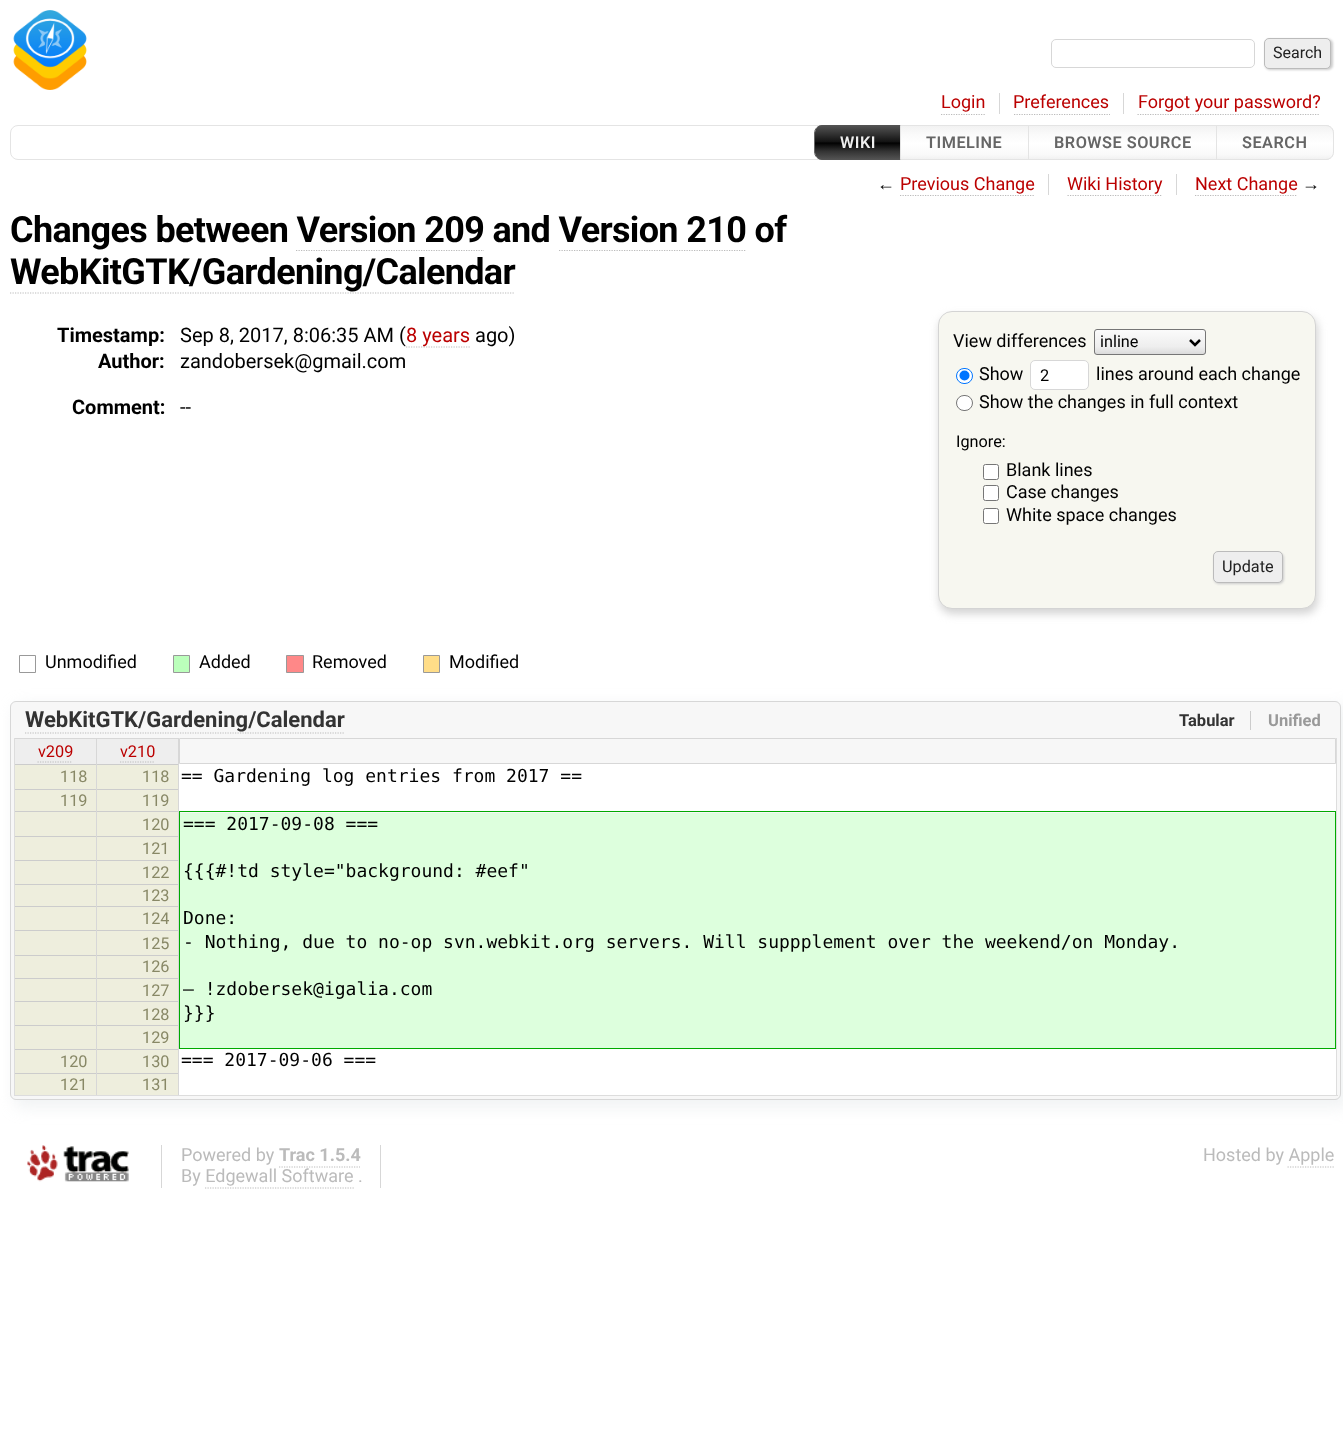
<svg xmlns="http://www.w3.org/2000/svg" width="1343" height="1431">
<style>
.a{font:16px Roboto;fill:#222}
.b{font:18px Roboto;fill:#b00}
.c{font:600 16.25px Roboto;letter-spacing:0.5px;fill:#eee}
.d{font:600 16.25px Roboto;letter-spacing:0.5px;fill:#666}
.e{font:18px Liberation Sans;fill:#000}
.f{font:bold 36px Roboto;letter-spacing:-0.65px;fill:#000}
.g{font:bold 20px Roboto;fill:#000}
.h{font:20px Roboto;fill:#000}
.i{font:20px Roboto;fill:#b00}
.j{font:18px Roboto;fill:#000}
.k{font:16.25px Roboto;fill:#000}
.l{font:16.25px Roboto;fill:#222}
.m{font:bold 22px Roboto;fill:#333}
.n{font:bold 16.5px Roboto;fill:#333}
.o{font:bold 16.5px Roboto;fill:#999}
.p{font:16.25px Roboto;fill:#b00}
.q{font:16.25px Roboto;fill:#886}
.r{font:18px DejaVu Sans Mono;fill:#000}
.s{font:18px Roboto;fill:#bbb}
.t{font:bold 18px Roboto;fill:#bbb}
</style>
<defs>
<linearGradient id="g1" gradientUnits="userSpaceOnUse" x1="858" y1="125" x2="858" y2="160"><stop offset="0" stop-color="#555"/><stop offset="0.25" stop-color="#333"/><stop offset="0.49" stop-color="#111"/><stop offset="0.51" stop-color="#000"/><stop offset="0.75" stop-color="#333"/><stop offset="1" stop-color="#555"/></linearGradient>
<linearGradient id="g2" gradientUnits="userSpaceOnUse" x1="964" y1="126" x2="964" y2="159"><stop offset="0" stop-color="#f2f2f2"/><stop offset="0.25" stop-color="#fafafa"/><stop offset="0.49" stop-color="#fefefe"/><stop offset="0.51" stop-color="#fff"/><stop offset="0.85" stop-color="#fafafa"/><stop offset="1" stop-color="#f2f2f2"/></linearGradient>
<linearGradient id="g3" gradientUnits="userSpaceOnUse" x1="1123" y1="126" x2="1123" y2="159"><stop offset="0" stop-color="#f2f2f2"/><stop offset="0.25" stop-color="#fafafa"/><stop offset="0.49" stop-color="#fefefe"/><stop offset="0.51" stop-color="#fff"/><stop offset="0.85" stop-color="#fafafa"/><stop offset="1" stop-color="#f2f2f2"/></linearGradient>
<clipPath id="clip1"><path d="M1216 125h110c4.5 0 8 3.5 8 8v19c0 4.5-3.5 8-8 8h-110z"/></clipPath>
<linearGradient id="g4" gradientUnits="userSpaceOnUse" x1="1275" y1="126" x2="1275" y2="159"><stop offset="0" stop-color="#f2f2f2"/><stop offset="0.25" stop-color="#fafafa"/><stop offset="0.49" stop-color="#fefefe"/><stop offset="0.51" stop-color="#fff"/><stop offset="0.85" stop-color="#fafafa"/><stop offset="1" stop-color="#f2f2f2"/></linearGradient>
<clipPath id="clip2"><rect x="1094" y="329" width="112" height="26" rx="3"/></clipPath>
<linearGradient id="g5" gradientUnits="userSpaceOnUse" x1="1150" y1="354" x2="1150" y2="330"><stop offset="0" stop-color="#dbdbdb"/><stop offset="0.3" stop-color="#eee"/><stop offset="1" stop-color="#fbfbfb"/></linearGradient>
</defs>
<rect width="100%" height="100%" fill="#fff"/>
<image href="1.png" x="13" y="10" width="74" height="80"/>
<rect fill="none" stroke="#d7d7d7" x="1051.5" y="39.5" width="203" height="28" rx="4.5"/>
<rect fill="#ccc" filter="blur(1px)" x="1265" y="39" width="68" height="31" rx="5"/>
<rect fill="#eee" stroke="#bbb" x="1264.5" y="38.5" width="66" height="30" rx="4.5"/>
<path fill="#d7d7d7" d="M999 93h1v21H999z"/>
<path fill="none" stroke="#bbb" stroke-width="1.2" stroke-dasharray="1.25 1.25" d="M941 114.5h44"/>
<path fill="#d7d7d7" d="M1123 93h1v21H1123z"/>
<path fill="none" stroke="#bbb" stroke-width="1.2" stroke-dasharray="1.25 1.25" d="M1014 114.5h96"/>
<path fill="none" stroke="#bbb" stroke-width="1.2" stroke-dasharray="1.25 1.25" d="M1137.5 114.5h182.5"/>
<rect fill="none" stroke="#e4e4e4" x="10.5" y="125.5" width="1323" height="34" rx="7.5"/>
<path fill="none" stroke="#666" d="M822 125.5h78.5v34h-78.5c-4 0-7.5-3.5-7.5-7.5v-19c0-4 3.5-7.5 7.5-7.5z"/>
<path fill="url(#g1)" d="M823 125h77v35h-77c-4.5 0-8-3.5-8-8v-19c0-4.5 3.5-8 8-8z"/>
<path fill="url(#g2)" d="M901 126h127v33H901z"/>
<path fill="none" stroke="#e4e4e4" d="M900.5 125.5h128v34H900.5z"/>
<path fill="url(#g3)" d="M1029 126h187v33H1029z"/>
<path fill="none" stroke="#e4e4e4" d="M1028.5 125.5h189v34H1028.5z"/>
<g clip-path="url(#clip1)">
<path fill="url(#g4)" d="M1217 126h117v33H1217z"/>
</g>
<path fill="none" stroke="#e4e4e4" d="M1216.5 125.5h109.5c4 0 7.5 3.5 7.5 7.5v19c0 4-3.5 7.5-7.5 7.5h-109.5z"/>
<path fill="#d7d7d7" d="M1048 174h1v21H1048z"/>
<path fill="none" stroke="#bbb" stroke-width="1.2" stroke-dasharray="1.25 1.25" d="M900 195.5h134"/>
<path fill="#d7d7d7" d="M1176 174h1v21H1176z"/>
<path fill="none" stroke="#bbb" stroke-width="1.2" stroke-dasharray="1.25 1.25" d="M1067.5 195.5h95"/>
<path fill="none" stroke="#bbb" stroke-width="1.2" stroke-dasharray="1.25 1.25" d="M1195 195.5h102.5"/>
<path fill="none" stroke="#bbb" stroke-width="1.2" stroke-dasharray="1.25 1.25" d="M10 293h505"/>
<path fill="none" stroke="#bbb" stroke-width="1.2" stroke-dasharray="1.25 1.25" d="M406 347h64"/>
<rect fill="#d4d4d4" filter="blur(4.5px)" x="939" y="316" width="379" height="298" rx="14"/>
<rect fill="#f7f7f0" stroke="#d4d4d4" x="938.5" y="311.5" width="377" height="297" rx="13.5"/>
<g clip-path="url(#clip2)">
<path fill="url(#g5)" d="M1094 330h112v24H1094z"/>
</g>
<rect fill="none" stroke="#767676" x="1094.5" y="329.5" width="111" height="25" rx="2.5"/>
<path fill="none" stroke="#000" stroke-width="2.5" d="M1190 340l5 5l5-5"/>
<rect fill="#fff" stroke="#0075ff" x="956.5" y="368.5" width="16" height="15" rx="7.5"/>
<circle fill="#0075ff" cx="964.5" cy="375.5" r="5"/>
<rect fill="#fff" stroke="#d7d7d7" x="1030.5" y="360.5" width="58" height="29" rx="4.5"/>
<rect fill="#fff" stroke="#767676" x="956.5" y="395.5" width="16" height="15" rx="7.5"/>
<rect fill="#fff" stroke="#767676" x="983.5" y="464.5" width="15" height="15" rx="2"/>
<rect fill="#fff" stroke="#767676" x="983.5" y="485.5" width="15" height="15" rx="2"/>
<rect fill="#fff" stroke="#767676" x="983.5" y="508.5" width="15" height="15" rx="2"/>
<rect fill="#ccc" filter="blur(1px)" x="1214" y="553" width="70" height="31" rx="5"/>
<rect fill="#eee" stroke="#bbb" x="1213.5" y="551.5" width="69" height="31" rx="4.5"/>
<path fill="none" stroke="#999" d="M19.5 655.5h16v17H19.5z"/>
<path fill="#bfb" stroke="#999" d="M173.5 655.5h16v17H173.5z"/>
<path fill="#f88" stroke="#999" d="M286.5 655.5h17v17H286.5z"/>
<path fill="#fd8" stroke="#999" d="M423.5 655.5h16v17H423.5z"/>
<rect fill="#d2d7dc4d" filter="blur(7.5px)" x="14" y="705" width="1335" height="403" rx="8"/>
<rect fill="#f7f7f7" stroke="#d7d7d7" x="10.5" y="701.5" width="1330" height="398" rx="5.5"/>
<path fill="none" stroke="#bbb" stroke-width="1.2" stroke-dasharray="1.25 1.25" d="M25 733h320"/>
<path fill="#ccc" d="M1250 711h1v19H1250z"/>
<path fill="#ddd" d="M1336 738h1v358H1336z"/>
<path fill="#ddd" d="M14 1095h1324v1H14z"/>
<path fill="#ddd" d="M14 738h1v358H14z"/>
<path fill="#eee" d="M15 739h163v25H15z"/>
<path fill="#d7d7d7" d="M15 738h164v1H15z"/>
<path fill="#d7d7d7" d="M96 738h1v26H96z"/>
<path fill="none" stroke="#bbb" stroke-width="1.2" stroke-dasharray="1.25 1.25" d="M37.5 762h35"/>
<path fill="#d7d7d7" d="M178 738h1v26H178z"/>
<path fill="none" stroke="#bbb" stroke-width="1.2" stroke-dasharray="1.25 1.25" d="M120 762h35"/>
<path fill="none" stroke="#d7d7d7" d="M179.5 738.5h1156v25H179.5z"/>
<path fill="#eed" d="M15 765h163v24H15z"/>
<path fill="#ccc" d="M15 764h164v1H15z"/>
<path fill="#d7d7d7" d="M96 764h1v25H96z"/>
<path fill="#d7d7d7" d="M178 764h1v25H178z"/>
<path fill="#fff" d="M179 764h1157v47H179z"/>
<path fill="#eed" d="M15 790h163v21H15z"/>
<path fill="#ccc" d="M15 789h164v1H15z"/>
<path fill="#d7d7d7" d="M96 789h1v22H96z"/>
<path fill="#d7d7d7" d="M178 789h1v22H178z"/>
<path fill="#eed" d="M15 812h163v24H15z"/>
<path fill="#ccc" d="M15 811h164v1H15z"/>
<path fill="#d7d7d7" d="M96 811h1v25H96z"/>
<path fill="#dfd" d="M180 813h1155v235H180z"/>
<path fill="#0a0" d="M179 811h1157v1H179z"/>
<path fill="#0a0" d="M1335 811h1v238H1335z"/>
<path fill="#0a0" d="M179 811h1v214H179z"/>
<path fill="#d7d7d7" d="M178 811h1v25H178z"/>
<path fill="#eed" d="M15 837h163v23H15z"/>
<path fill="#ccc" d="M15 836h164v1H15z"/>
<path fill="#d7d7d7" d="M96 836h1v24H96z"/>
<path fill="#d7d7d7" d="M178 836h1v24H178z"/>
<path fill="#eed" d="M15 861h163v23H15z"/>
<path fill="#ccc" d="M15 860h164v1H15z"/>
<path fill="#d7d7d7" d="M96 860h1v24H96z"/>
<path fill="#d7d7d7" d="M178 860h1v24H178z"/>
<path fill="#eed" d="M15 885h163v21H15z"/>
<path fill="#ccc" d="M15 884h164v1H15z"/>
<path fill="#d7d7d7" d="M96 884h1v22H96z"/>
<path fill="#d7d7d7" d="M178 884h1v22H178z"/>
<path fill="#eed" d="M15 907h163v23H15z"/>
<path fill="#ccc" d="M15 906h164v1H15z"/>
<path fill="#d7d7d7" d="M96 906h1v24H96z"/>
<path fill="#d7d7d7" d="M178 906h1v24H178z"/>
<path fill="#eed" d="M15 931h163v24H15z"/>
<path fill="#ccc" d="M15 930h164v1H15z"/>
<path fill="#d7d7d7" d="M96 930h1v25H96z"/>
<path fill="#d7d7d7" d="M178 930h1v25H178z"/>
<path fill="#eed" d="M15 956h163v22H15z"/>
<path fill="#ccc" d="M15 955h164v1H15z"/>
<path fill="#d7d7d7" d="M96 955h1v23H96z"/>
<path fill="#d7d7d7" d="M178 955h1v23H178z"/>
<path fill="#eed" d="M15 979h163v22H15z"/>
<path fill="#ccc" d="M15 978h164v1H15z"/>
<path fill="#d7d7d7" d="M96 978h1v23H96z"/>
<path fill="#d7d7d7" d="M178 978h1v23H178z"/>
<path fill="#eed" d="M15 1002h163v23H15z"/>
<path fill="#ccc" d="M15 1001h164v1H15z"/>
<path fill="#d7d7d7" d="M96 1001h1v24H96z"/>
<path fill="#d7d7d7" d="M178 1001h1v24H178z"/>
<path fill="#eed" d="M15 1026h163v23H15z"/>
<path fill="#ccc" d="M15 1025h164v1H15z"/>
<path fill="#d7d7d7" d="M96 1025h1v24H96z"/>
<path fill="#0a0" d="M179 1048h1157v1H179z"/>
<path fill="#0a0" d="M179 1025h1v24H179z"/>
<path fill="#d7d7d7" d="M178 1025h1v24H178z"/>
<path fill="#eed" d="M15 1050h163v23H15z"/>
<path fill="#ccc" d="M15 1049h164v1H15z"/>
<path fill="#d7d7d7" d="M96 1049h1v24H96z"/>
<path fill="#d7d7d7" d="M178 1049h1v24H178z"/>
<path fill="#fff" d="M179 1049h1157v46H179z"/>
<path fill="#eed" d="M15 1074h163v21H15z"/>
<path fill="#ccc" d="M15 1073h164v1H15z"/>
<path fill="#d7d7d7" d="M96 1073h1v22H96z"/>
<path fill="#d7d7d7" d="M178 1073h1v22H178z"/>
<image href="2.png" x="27" y="1145" width="102" height="37"/>
<path fill="#d7d7d7" d="M380 1145h1v43H380z"/>
<path fill="#d7d7d7" d="M161 1145h1v43H161z"/>
<path fill="none" stroke="#bbb" stroke-width="1.2" stroke-dasharray="1.25 1.25" d="M279 1167h81"/>
<path fill="none" stroke="#bbb" stroke-width="1.2" stroke-dasharray="1.25 1.25" d="M205 1188h149"/>
<path fill="none" stroke="#bbb" stroke-width="1.2" stroke-dasharray="1.25 1.25" d="M1287.5 1167h46.5"/>
<text class="a" x="1273" y="58">Search</text>
<text class="b" x="941" y="108">Login</text>
<text class="b" x="1013" y="108">Preferences</text>
<text class="b" x="1138" y="108">Forgot your password?</text>
<text class="c" x="840" y="148">WIKI</text>
<text class="d" x="926" y="148">TIMELINE</text>
<text class="d" x="1054" y="148">BROWSE SOURCE</text>
<text class="d" x="1242" y="148">SEARCH</text>
<text class="e" x="877" y="190">←</text>
<text class="b" x="900" y="190">Previous Change</text>
<text class="b" x="1067" y="190">Wiki History</text>
<text class="b" x="1195" y="190">Next Change</text>
<text class="e" x="1302" y="190">→</text>
<text class="f" x="10" y="242">Changes between Version 209 and Version 210 of</text>
<path fill="none" stroke="#bbb" stroke-width="1.2" stroke-dasharray="1.25 1.25" d="M296 250.5h188"/>
<path fill="none" stroke="#bbb" stroke-width="1.2" stroke-dasharray="1.25 1.25" d="M559 250.5h187"/>
<text class="f" x="10" y="284">WebKitGTK/Gardening/Calendar</text>
<text class="g" x="57" y="342">Timestamp:</text>
<text class="h" x="180" y="342">Sep 8, 2017, 8:06:35 AM (</text>
<text class="i" x="406" y="342">8 years</text>
<text class="h" x="475" y="342">ago)</text>
<text class="g" x="98" y="368">Author:</text>
<text class="h" x="180" y="368">zandobersek@gmail.com</text>
<text class="g" x="72" y="414">Comment:</text>
<text class="h" x="180" y="414">--</text>
<text class="j" x="953" y="347">View differences</text>
<text class="k" x="1100" y="347">inline</text>
<text class="j" x="979" y="380">Show</text>
<text class="k" x="1040" y="381">2</text>
<text class="j" x="1096" y="380">lines around each change</text>
<text class="j" x="979" y="408">Show the changes in full context</text>
<text class="k" x="956" y="447">Ignore:</text>
<text class="j" x="1006" y="476">Blank lines</text>
<text class="j" x="1006" y="498">Case changes</text>
<text class="j" x="1006" y="521">White space changes</text>
<text class="l" x="1222" y="572">Update</text>
<text class="j" x="45" y="668">Unmodified</text>
<text class="j" x="199" y="668">Added</text>
<text class="j" x="312" y="668">Removed</text>
<text class="j" x="449" y="668">Modified</text>
<text class="m" x="25" y="727">WebKitGTK/Gardening/Calendar</text>
<text class="n" x="1179" y="726">Tabular</text>
<text class="o" x="1268" y="726">Unified</text>
<text class="p" x="38" y="757">v209</text>
<text class="p" x="120" y="757">v210</text>
<text class="q" x="60" y="782">118</text>
<text class="q" x="142" y="782">118</text>
<text class="r" x="181" y="782">== Gardening log entries from 2017 ==</text>
<text class="q" x="60" y="806">119</text>
<text class="q" x="142" y="806">119</text>
<text class="r" x="183" y="830">=== 2017-09-08 ===</text>
<text class="q" x="142" y="830">120</text>
<text class="q" x="142" y="854">121</text>
<text class="r" x="183" y="877">{{{#!td style="background: #eef"</text>
<text class="q" x="142" y="878">122</text>
<text class="q" x="142" y="901">123</text>
<text class="r" x="183" y="924">Done:</text>
<text class="q" x="142" y="924">124</text>
<text class="r" x="183" y="948">- Nothing, due to no-op svn.webkit.org servers. Will suppplement over the weekend/on Monday.</text>
<text class="q" x="142" y="949">125</text>
<text class="q" x="142" y="972">126</text>
<text class="r" x="183" y="995">— !zdobersek@igalia.com</text>
<text class="q" x="142" y="996">127</text>
<text class="r" x="183" y="1019">}}}</text>
<text class="q" x="142" y="1020">128</text>
<text class="q" x="142" y="1043">129</text>
<text class="q" x="60" y="1067">120</text>
<text class="q" x="142" y="1067">130</text>
<text class="r" x="181" y="1066">=== 2017-09-06 ===</text>
<text class="q" x="60" y="1090">121</text>
<text class="q" x="142" y="1090">131</text>
<text class="s" x="181" y="1161">Powered by</text>
<text class="t" x="279" y="1161">Trac 1.5.4</text>
<text class="s" x="181" y="1182">By Edgewall Software .</text>
<text class="s" x="1203" y="1161">Hosted by Apple</text>
</svg>
